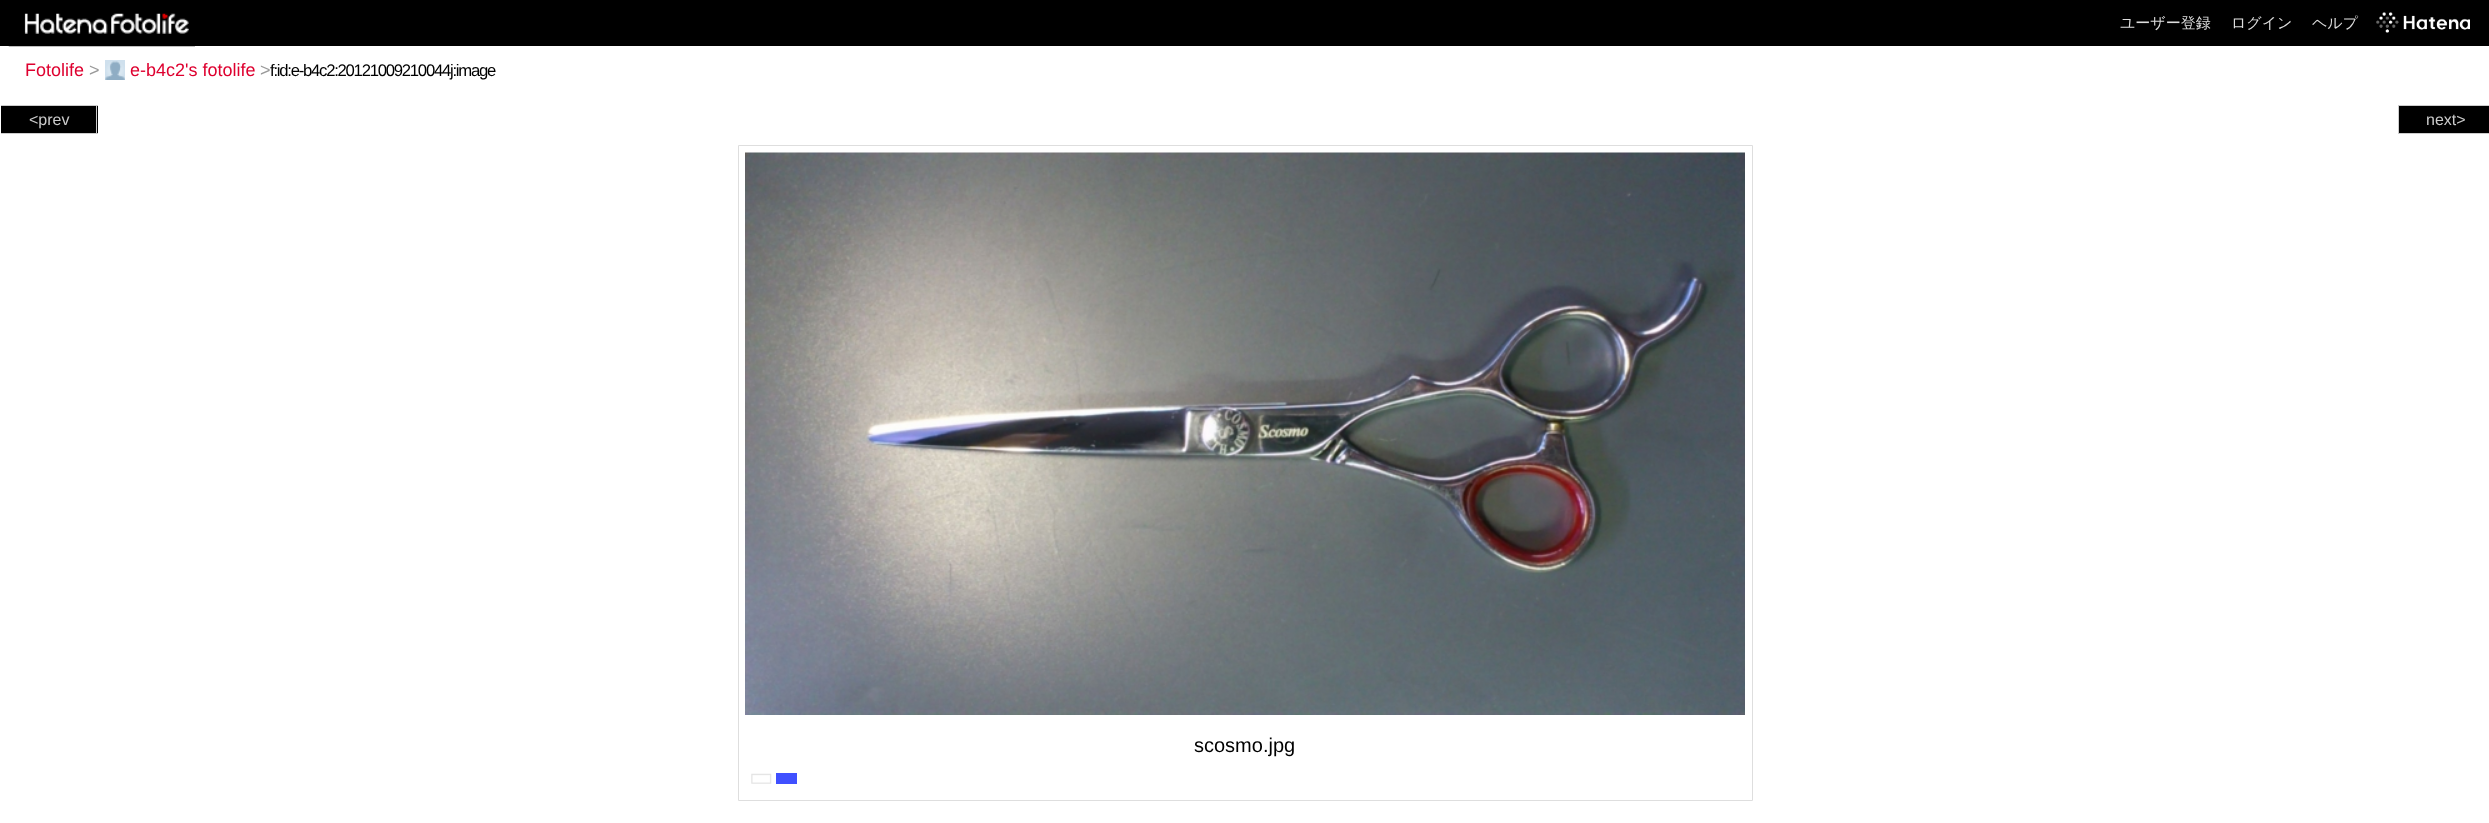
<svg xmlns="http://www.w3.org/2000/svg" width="2489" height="823">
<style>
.a{font:500 15px WenQuanYi Zen Hei;fill:#ddd}
.b{font:18px Liberation Sans;fill:#de002f}
.c{font:18px Liberation Sans;fill:#999}
.d{font:16.7px Liberation Sans;letter-spacing:-1.25px;fill:#000}
.e{font:16px Liberation Sans;fill:#ccc}
.f{font:20px Liberation Sans;fill:#000}
</style>
<rect width="100%" height="100%" fill="#fff"/>
<path fill="#000" d="M0 0h2489v46H0z"/>
<image href="1.png" x="8" y="13" width="104" height="34"/>
<image href="2.png" x="111" y="13" width="84" height="34"/>
<image href="3.png" x="2376" y="12" width="94" height="21"/>
<image href="4.png" x="105" y="60" width="20" height="20"/>
<path fill="#000" d="M1 106h97v27H1z"/>
<path fill="#ccc" d="M1 105h97v1H1z"/>
<path fill="#ccc" d="M96 105h1v29H96z"/>
<path fill="#ccc" d="M1 133h97v1H1z"/>
<path fill="#000" d="M2399 106h90v27H2399z"/>
<path fill="#ccc" d="M2398 105h91v1H2398z"/>
<path fill="#ccc" d="M2398 133h91v1H2398z"/>
<path fill="#ccc" d="M2398 105h1v29H2398z"/>
<path fill="none" stroke="#dedede" d="M738.5 145.5h1014v655H738.5z"/>
<image href="5.png" x="745" y="152" width="1000" height="563"/>
<image href="6.png" x="751" y="773" width="21" height="11"/>
<path fill="#4050ff" d="M776 773h21v11H776z"/>
<text class="a" x="2120" y="28">ユーザー登録</text>
<text class="a" x="2231" y="28">ログイン</text>
<text class="a" x="2312" y="28">ヘルプ</text>
<text class="b" x="25" y="76">Fotolife</text>
<text class="c" x="89" y="76">&gt;</text>
<text class="b" x="130" y="76">e-b4c2's fotolife</text>
<text class="c" x="260" y="76">&gt;</text>
<text class="d" x="270" y="76">f:id:e-b4c2:20121009210044j:image</text>
<text class="e" x="29" y="125">&lt;prev</text>
<text class="e" x="2426" y="125">next&gt;</text>
<text class="f" x="1194" y="752">scosmo.jpg</text>
</svg>
